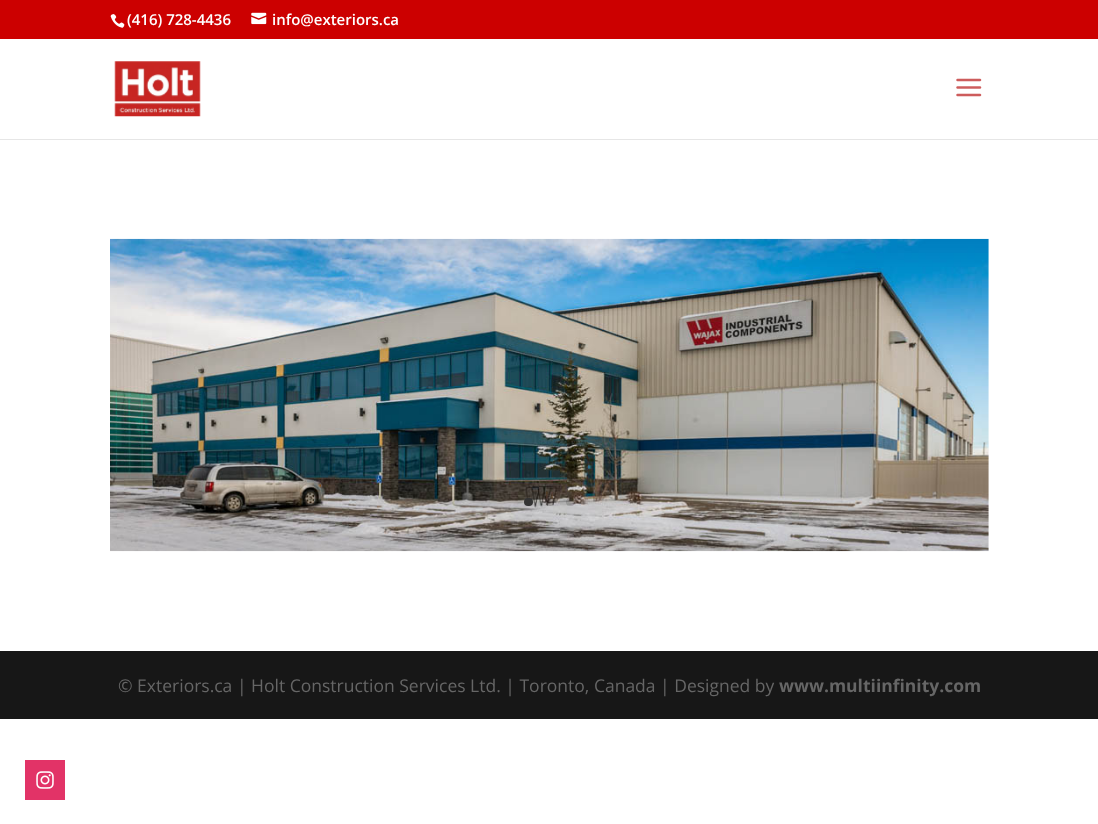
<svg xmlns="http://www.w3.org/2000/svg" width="1098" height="824">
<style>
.a{font:600 15px Open Sans;fill:#fff}
.b{font:17.5px Open Sans;fill:#666}
.c{font:bold 17.5px Open Sans;fill:#666}
</style>
<rect width="100%" height="100%" fill="#fff"/>
<path fill="#c00" d="M0 0h1098v39H0z"/>
<image href="1.png" x="110" y="14" width="15" height="14"/>
<image href="2.png" x="251" y="12" width="16" height="13"/>
<path fill="#e6e6e6" d="M0 139v1h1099v-100v99z"/>
<image href="3.png" x="114" y="61" width="87" height="56"/>
<image href="4.png" x="956" y="78" width="26" height="19"/>
<image href="5.png" x="110" y="238" width="879" height="314"/>
<rect fill="#333" x="524" y="498" width="9" height="8" rx="4"/>
<rect fill="#00000026" x="545" y="498" width="9" height="8" rx="4"/>
<rect fill="#00000026" x="566" y="498" width="9" height="8" rx="4"/>
<path fill="#171717" d="M0 651h1098v68H0z"/>
<path fill="#e23367" d="M25 760h40v40H25z"/>
<image href="6.png" x="36" y="771" width="18" height="18"/>
<text class="a" x="127" y="25">(416) 728-4436</text>
<text class="a" x="272" y="25">info@exteriors.ca</text>
<text class="b" x="118" y="692">© Exteriors.ca | Holt Construction Services Ltd. | Toronto, Canada | Designed by</text>
<text class="c" x="779" y="692">www.multiinfinity.com</text>
</svg>
